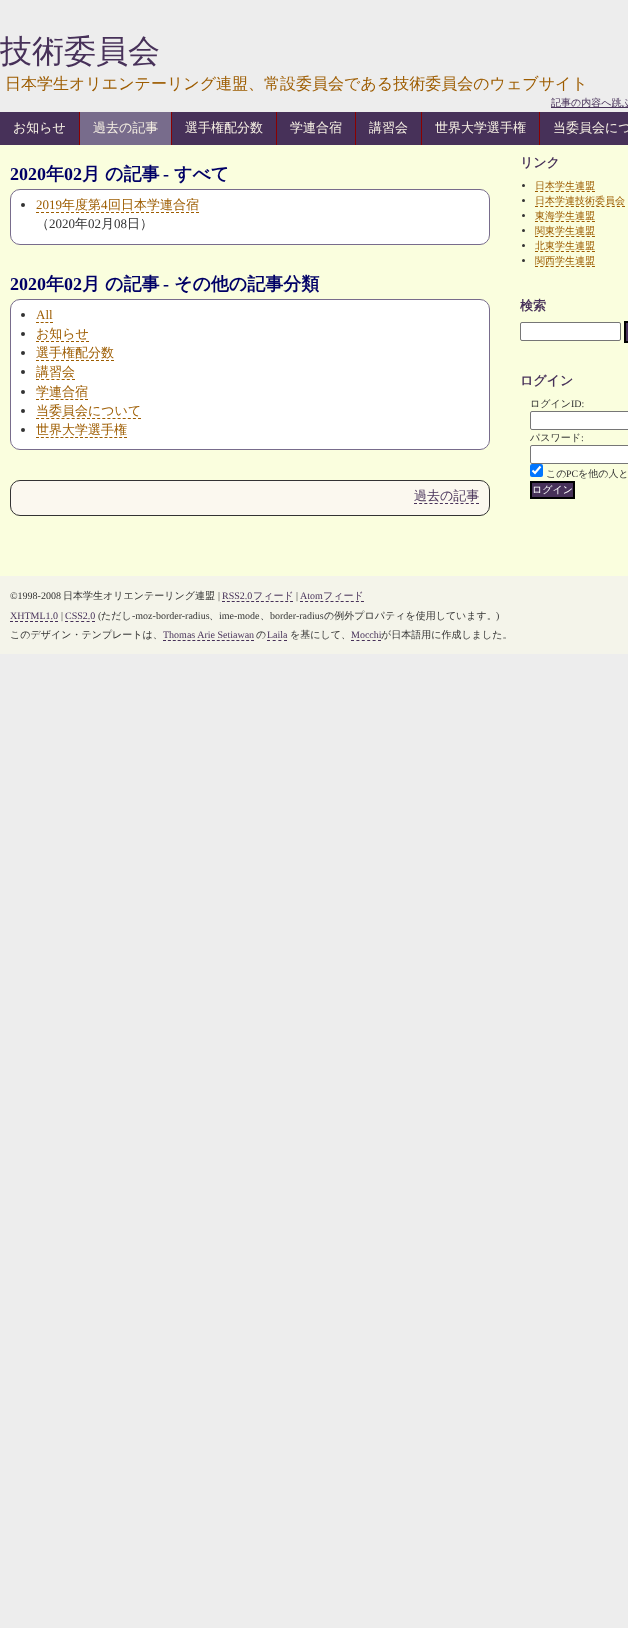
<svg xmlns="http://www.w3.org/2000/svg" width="628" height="1628">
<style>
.a{font:500 32px WenQuanYi Zen Hei;fill:#473159}
.b{font:500 16px WenQuanYi Zen Hei;fill:#9d5c00}
.c{font:500 10px WenQuanYi Zen Hei;fill:#473159}
.d{font:500 13px WenQuanYi Zen Hei;fill:#f8f2e5}
.e{font:bold 18px Liberation Serif;fill:#006}
.f{font:bold 18px WenQuanYi Zen Hei;fill:#006}
.g{font:13px Liberation Serif;fill:#9d5c00}
.h{font:500 13px WenQuanYi Zen Hei;fill:#9d5c00}
.i{font:500 13px WenQuanYi Zen Hei;fill:#333}
.j{font:13px Liberation Serif;fill:#333}
.k{font:500 13px WenQuanYi Zen Hei;fill:#473159}
.l{font:bold 13px WenQuanYi Zen Hei;fill:#473159}
.m{font:500 10px WenQuanYi Zen Hei;fill:#9d5c00}
.n{font:500 10px WenQuanYi Zen Hei;fill:#333}
.o{font:10px Liberation Serif;fill:#333}
.p{font:500 10px WenQuanYi Zen Hei;fill:#fff}
.q{font:10px Liberation Serif;fill:#473159}
</style>
<rect width="100%" height="100%" fill="#ededed"/>
<path fill="#473159" d="M551 107h77v1H551z"/>
<path fill="#473159" d="M0 112h628v33H0z"/>
<path fill="#8c0000" d="M79 112h1v33H79z"/>
<path fill="#786c8c" d="M80 112h91v33H80z"/>
<path fill="#8c0000" d="M171 112h1v33H171z"/>
<path fill="#8c0000" d="M276 112h1v33H276z"/>
<path fill="#8c0000" d="M355 112h1v33H355z"/>
<path fill="#8c0000" d="M421 112h1v33H421z"/>
<path fill="#8c0000" d="M539 112h1v33H539z"/>
<path fill="#fafede" d="M0 145h628v431H0z"/>
<rect fill="#fff" stroke="#786c8c" x="10.5" y="189.5" width="479" height="55" rx="9.5"/>
<circle fill="#333" cx="23" cy="205" r="2"/>
<path fill="none" stroke="#9d5c00" stroke-dasharray="3 2" d="M36 212.5h163"/>
<rect fill="#fff" stroke="#786c8c" x="10.5" y="299.5" width="479" height="150" rx="9.5"/>
<circle fill="#333" cx="23" cy="315" r="2"/>
<path fill="none" stroke="#9d5c00" stroke-dasharray="3 1.67" d="M36 322.5h17"/>
<circle fill="#333" cx="23" cy="334" r="2"/>
<path fill="none" stroke="#9d5c00" stroke-dasharray="3 2" d="M36 341.5h53"/>
<circle fill="#333" cx="23" cy="353" r="2"/>
<path fill="none" stroke="#9d5c00" stroke-dasharray="3 2" d="M36 360.5h78"/>
<circle fill="#333" cx="23" cy="372" r="2"/>
<path fill="none" stroke="#9d5c00" stroke-dasharray="3 2.14" d="M36 379.5h39"/>
<circle fill="#333" cx="23" cy="392" r="2"/>
<path fill="none" stroke="#9d5c00" stroke-dasharray="3 1.9" d="M36 399.5h52"/>
<circle fill="#333" cx="23" cy="411" r="2"/>
<path fill="none" stroke="#9d5c00" stroke-dasharray="3 2.1" d="M36 418.5h105"/>
<circle fill="#333" cx="23" cy="430" r="2"/>
<path fill="none" stroke="#9d5c00" stroke-dasharray="3 1.89" d="M36 437.5h91"/>
<rect fill="#fbf8ef" stroke="#333" x="10.5" y="480.5" width="479" height="35" rx="9.5"/>
<path fill="none" stroke="#473159" stroke-dasharray="3 2.17" d="M414 503.5h65"/>
<circle fill="#333" cx="523.5" cy="185.5" r="1.5"/>
<path fill="none" stroke="#9d5c00" stroke-dasharray="3 2.18" d="M535 191.5h60"/>
<circle fill="#333" cx="523.5" cy="200.5" r="1.5"/>
<path fill="none" stroke="#9d5c00" stroke-dasharray="3 2.12" d="M535 206.5h90"/>
<circle fill="#333" cx="523.5" cy="215.5" r="1.5"/>
<path fill="none" stroke="#9d5c00" stroke-dasharray="3 2.18" d="M535 221.5h60"/>
<circle fill="#333" cx="523.5" cy="230.5" r="1.5"/>
<path fill="none" stroke="#9d5c00" stroke-dasharray="3 2.18" d="M535 236.5h60"/>
<circle fill="#333" cx="523.5" cy="245.5" r="1.5"/>
<path fill="none" stroke="#9d5c00" stroke-dasharray="3 2.18" d="M535 251.5h60"/>
<circle fill="#333" cx="523.5" cy="260.5" r="1.5"/>
<path fill="none" stroke="#9d5c00" stroke-dasharray="3 2.18" d="M535 266.5h60"/>
<rect fill="#fff" stroke="#767676" x="520.5" y="322.5" width="100" height="18" rx="1.5"/>
<path fill="#473159" stroke="#000" stroke-width="2" d="M625 322h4v20H625z"/>
<path fill="#fff" d="M532 411h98v19h-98c-1 0-2-1-2-2v-15c0-1 1-2 2-2z"/>
<rect fill="none" stroke="#767676" x="530.5" y="411.5" width="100" height="18" rx="1.5"/>
<path fill="#fff" d="M532 445h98v19h-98c-1 0-2-1-2-2v-15c0-1 1-2 2-2z"/>
<rect fill="none" stroke="#767676" x="530.5" y="445.5" width="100" height="18" rx="1.5"/>
<rect fill="#0075ff" x="530" y="464" width="13" height="13" rx="2"/>
<path fill="none" stroke="#fff" stroke-width="2.1" d="M532.5 470.5l2.5 2.5l5.5-6.5"/>
<path fill="#473159" stroke="#000" stroke-width="2" d="M531 482h43v16H531z"/>
<path fill="#f4f4ea" d="M0 576h628v78H0z"/>
<path fill="none" stroke="#473159" stroke-dasharray="3 1.86" d="M222 601.5h71"/>
<path fill="none" stroke="#473159" stroke-dasharray="3 2.08" d="M300 601.5h64"/>
<path fill="none" stroke="#473159" stroke-dasharray="3 2" d="M10 621.5h48"/>
<path fill="none" stroke="#473159" stroke-dasharray="3 2.4" d="M65 621.5h30"/>
<path fill="none" stroke="#473159" stroke-dasharray="3 1.89" d="M163 640.5h91"/>
<path fill="none" stroke="#473159" stroke-dasharray="3 2.67" d="M267 640.5h20"/>
<path fill="none" stroke="#473159" stroke-dasharray="3 2.4" d="M351 640.5h30"/>
<text class="a" x="0" y="62">技術委員会</text>
<text class="b" x="5" y="89">日本学生オリエンテーリング連盟、常設委員会である技術委員会のウェブサイト</text>
<text class="c" x="551" y="106">記事の内容へ跳ぶ</text>
<text class="d" x="13" y="132">お知らせ</text>
<text class="d" x="93" y="132">過去の記事</text>
<text class="d" x="185" y="132">選手権配分数</text>
<text class="d" x="290" y="132">学連合宿</text>
<text class="d" x="369" y="132">講習会</text>
<text class="d" x="435" y="132">世界大学選手権</text>
<text class="d" x="553" y="132">当委員会につ</text>
<text class="e" x="10" y="180">2020</text>
<text class="f" x="46" y="180">年</text>
<text class="e" x="64" y="180">02</text>
<text class="f" x="82" y="180">月</text>
<text class="f" x="105" y="180">の記事</text>
<text class="e" x="163" y="180">-</text>
<text class="f" x="174" y="180">すべて</text>
<text class="g" x="36" y="209">2019</text>
<text class="h" x="62" y="209">年度第</text>
<text class="g" x="101" y="209">4</text>
<text class="h" x="108" y="209">回日本学連合宿</text>
<text class="i" x="36" y="228">（</text>
<text class="j" x="49" y="228">2020</text>
<text class="i" x="75" y="228">年</text>
<text class="j" x="88" y="228">02</text>
<text class="i" x="101" y="228">月</text>
<text class="j" x="114" y="228">08</text>
<text class="i" x="127" y="228">日）</text>
<text class="e" x="10" y="290">2020</text>
<text class="f" x="46" y="290">年</text>
<text class="e" x="64" y="290">02</text>
<text class="f" x="82" y="290">月</text>
<text class="f" x="105" y="290">の記事</text>
<text class="e" x="163" y="290">-</text>
<text class="f" x="174" y="290">その他の記事分類</text>
<text class="g" x="36" y="319">All</text>
<text class="h" x="36" y="338">お知らせ</text>
<text class="h" x="36" y="357">選手権配分数</text>
<text class="h" x="36" y="376">講習会</text>
<text class="h" x="36" y="396">学連合宿</text>
<text class="h" x="36" y="415">当委員会について</text>
<text class="h" x="36" y="434">世界大学選手権</text>
<text class="k" x="414" y="500">過去の記事</text>
<text class="l" x="520" y="167">リンク</text>
<text class="m" x="535" y="189">日本学生連盟</text>
<text class="m" x="535" y="204">日本学連技術委員会</text>
<text class="m" x="535" y="219">東海学生連盟</text>
<text class="m" x="535" y="234">関東学生連盟</text>
<text class="m" x="535" y="249">北東学生連盟</text>
<text class="m" x="535" y="264">関西学生連盟</text>
<text class="l" x="520" y="310">検索</text>
<text class="l" x="520" y="385">ログイン</text>
<text class="n" x="530" y="407">ログイン</text>
<text class="o" x="571" y="407">ID:</text>
<text class="n" x="530" y="441">パスワード</text>
<text class="o" x="581" y="441">:</text>
<text class="n" x="546" y="477">この</text>
<text class="o" x="566" y="477">PC</text>
<text class="n" x="578" y="477">を他の人と</text>
<text class="p" x="532" y="493">ログイン</text>
<text class="o" x="10" y="599">©1998-2008</text>
<text class="n" x="63" y="599">日本学生オリエンテーリング連盟</text>
<text class="o" x="218" y="599">|</text>
<text class="q" x="222" y="599">RSS2.0</text>
<text class="c" x="253" y="599">フィード</text>
<text class="o" x="296" y="599">|</text>
<text class="q" x="300" y="599">Atom</text>
<text class="c" x="323" y="599">フィード</text>
<text class="q" x="10" y="619">XHTML1.0</text>
<text class="o" x="61" y="619">|</text>
<text class="q" x="65" y="619">CSS2.0</text>
<text class="o" x="98" y="619">(</text>
<text class="n" x="101" y="619">ただし</text>
<text class="o" x="132" y="619">-moz-border-radius</text>
<text class="n" x="209" y="619">、</text>
<text class="o" x="219" y="619">ime-mode</text>
<text class="n" x="260" y="619">、</text>
<text class="o" x="270" y="619">border-radius</text>
<text class="n" x="324" y="619">の例外プロパティを使用しています。</text>
<text class="o" x="496" y="619">)</text>
<text class="n" x="10" y="638">このデザイン・テンプレートは、</text>
<text class="q" x="163" y="638">Thomas Arie Setiawan</text>
<text class="n" x="256" y="638">の</text>
<text class="q" x="267" y="638">Laila</text>
<text class="n" x="290" y="638">を基にして、</text>
<text class="q" x="351" y="638">Mocchi</text>
<text class="n" x="381" y="638">が日本語用に作成しました。</text>
</svg>
